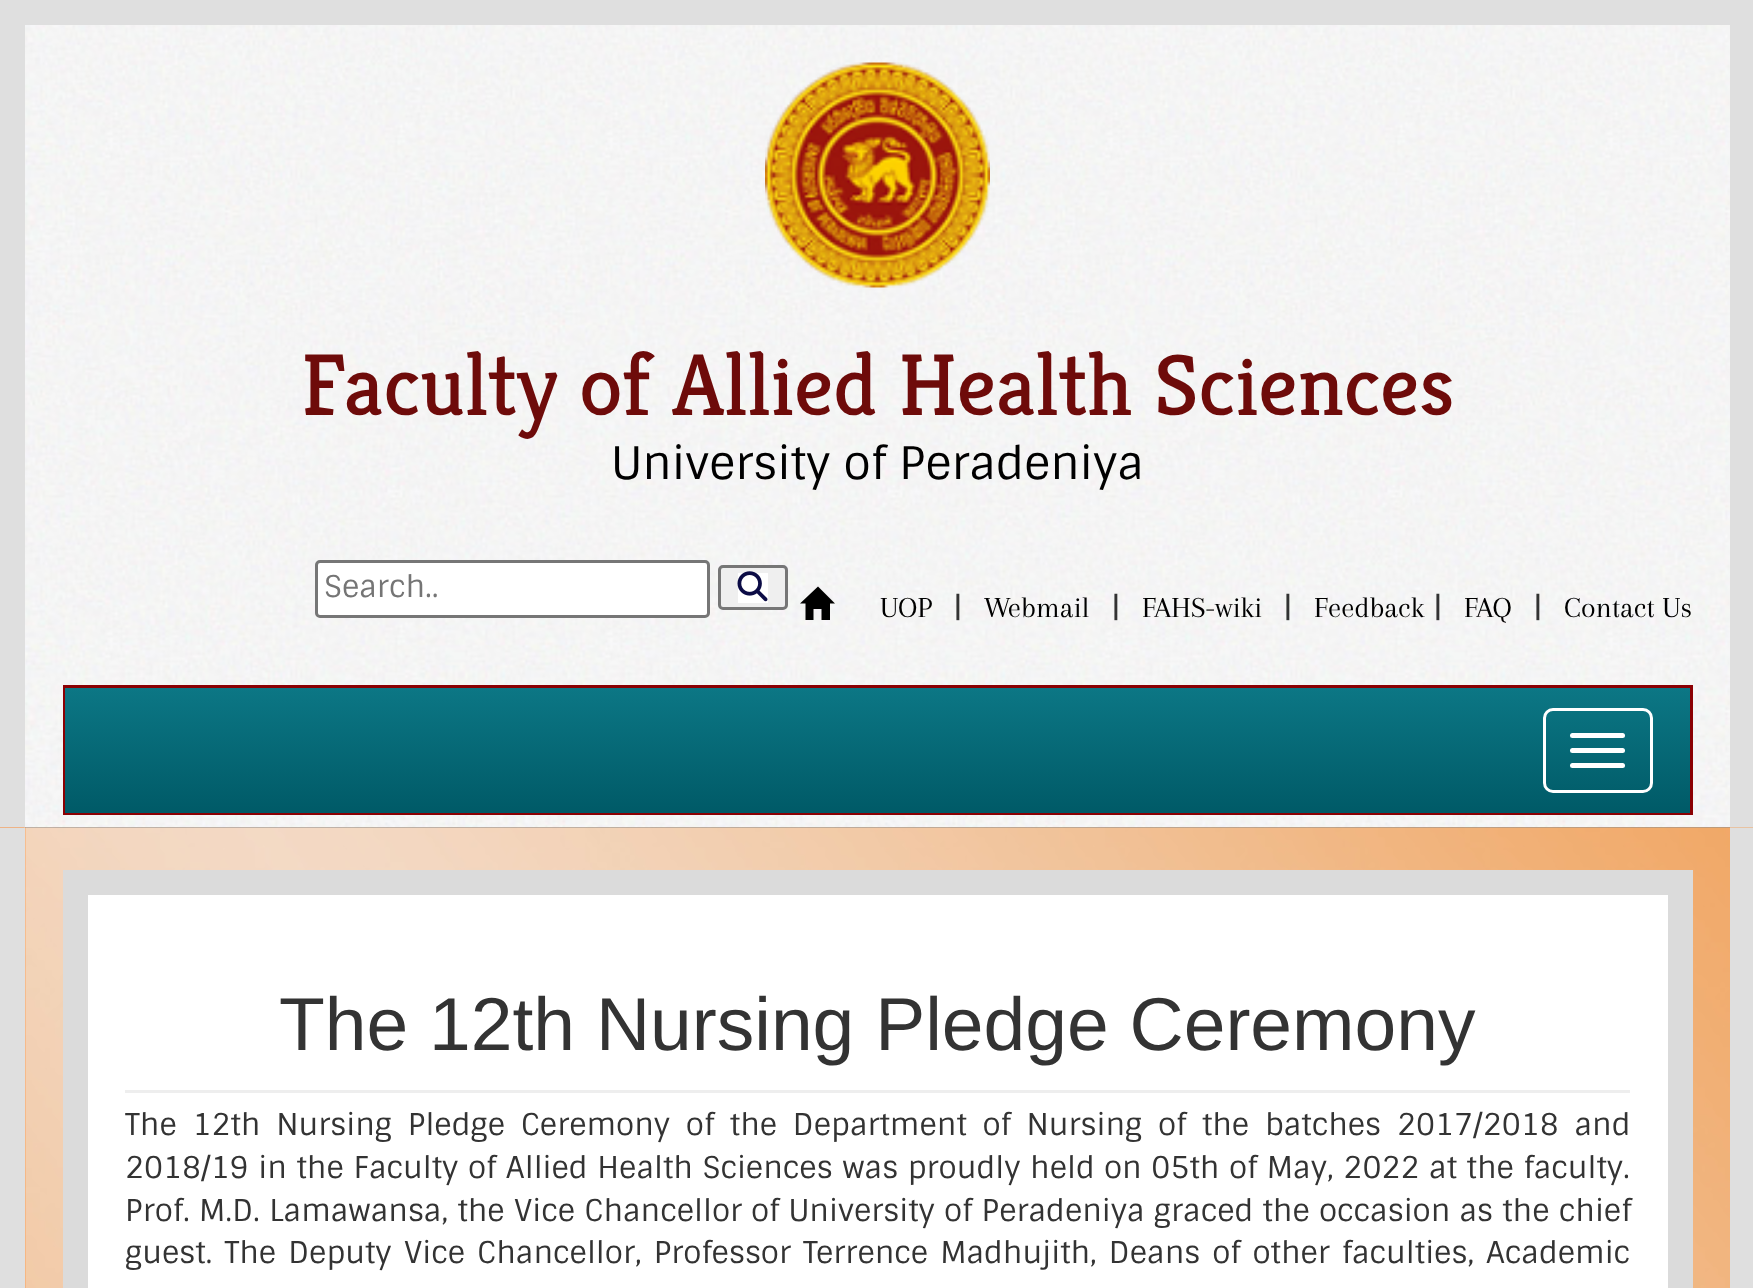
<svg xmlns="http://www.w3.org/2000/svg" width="1753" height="1288">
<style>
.a{font:300 87.5px Kreon;fill:#6e0b0a}
.b{font:45px Sintony;fill:#000}
.c{font:30px Sintony;fill:#757575}
.d{font:30px Arapey;fill:#000}
.e{font:30px Sintony;fill:#333}
.f{font:75px Liberation Sans;fill:#333}
</style>
<defs>
<linearGradient id="g1" gradientUnits="userSpaceOnUse" x1="878" y1="687" x2="878" y2="813"><stop offset="0" stop-color="#0c7785"/><stop offset="1" stop-color="#005a67"/></linearGradient>
</defs>
<rect width="100%" height="100%" fill="#fff"/>
<image href="1.png" x="25" y="827" width="1705" height="1"/>
<image href="2.png" x="25" y="25" width="1705" height="803"/>
<path fill="#dfdfdf" d="M25 0h1705v25H25z"/>
<path fill="#dfdfdf" d="M1730 0h23v828H1730z"/>
<path fill="#dfdfdf" d="M0 0h25v828H0z"/>
<image href="3.png" x="765" y="62" width="225" height="226"/>
<rect fill="#fff" stroke="#767676" stroke-width="3" x="316.5" y="561.5" width="392" height="55" rx="3.5"/>
<rect fill="#efefef" stroke="#767676" stroke-width="3" x="719.5" y="566.5" width="67" height="42" rx="3.5"/>
<path fill="#fff" d="M738 573h30v30H738z"/>
<image href="4.png" x="737" y="571" width="31" height="31"/>
<path fill="#000" d="M800 603.5l18-17l17 17h-5v16.5h-8.5v-11h-8v11h-8v-16.5z"/>
<path fill="#8b0003" d="M63 685h1630v130H63z"/>
<path fill="url(#g1)" d="M65 688h1625v125H65z"/>
<rect fill="none" stroke="#fff" stroke-width="3" x="1544.5" y="709.5" width="107" height="82" rx="8.5"/>
<rect fill="#fff" x="1570" y="733" width="55" height="5" rx="2.5"/>
<rect fill="#fff" x="1570" y="748" width="55" height="5" rx="2.5"/>
<rect fill="#fff" x="1570" y="763" width="55" height="5" rx="2.5"/>
<image href="5.png" x="0" y="827" width="1753" height="461"/>
<path fill="#dfdfdf" d="M1730 828h23v460H1730z"/>
<path fill="#dfdfdf" d="M0 828h25v460H0z"/>
<path fill="#fff" stroke="#dbdbdb" stroke-width="25" d="M75.5 882.5h1605v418H75.5z"/>
<path fill="#eee" d="M125 1090h1505v3H125z"/>
<text class="a" x="301" y="415">Faculty of Allied Health Sciences</text>
<text class="b" x="611" y="479">University of Peradeniya</text>
<text class="c" x="324" y="597">Search..</text>
<text class="d" x="880" y="617">UOP</text>
<text class="e" x="953" y="617">|</text>
<text class="d" x="984" y="617">Webmail</text>
<text class="e" x="1111" y="617">|</text>
<text class="d" x="1142" y="617">FAHS-wiki</text>
<text class="e" x="1283" y="617">|</text>
<text class="d" x="1314" y="617">Feedback</text>
<text class="e" x="1433" y="617">|</text>
<text class="d" x="1464" y="617">FAQ</text>
<text class="e" x="1533" y="617">|</text>
<text class="d" x="1564" y="617">Contact Us</text>
<text class="f" x="279" y="1050">The 12th Nursing Pledge Ceremony</text>
<text class="e" x="125" y="1135" word-spacing="7">The 12th Nursing Pledge Ceremony of the Department of Nursing of the batches</text>
<text class="e" x="1397" y="1135" word-spacing="7">2017/2018 and</text>
<text class="e" x="125" y="1178" word-spacing="0.9">2018/19 in the Faculty of Allied Health Sciences was proudly held</text>
<text class="e" x="1104" y="1178" word-spacing="0.9">on 05th of May, 2022 at the faculty.</text>
<text class="e" x="125" y="1221" word-spacing="0.5">Prof. M.D. Lamawansa, the Vice Chancellor</text>
<text class="e" x="751" y="1221" word-spacing="0.5">of University of Peradeniya graced the occasion as the chief</text>
<text class="e" x="125" y="1263" word-spacing="3.25">guest. The Deputy</text>
<text class="e" x="404" y="1263" word-spacing="3.25">Vice Chancellor, Professor Terrence Madhujith, Deans of other faculties,</text>
<text class="e" x="1486" y="1263">Academic</text>
</svg>
